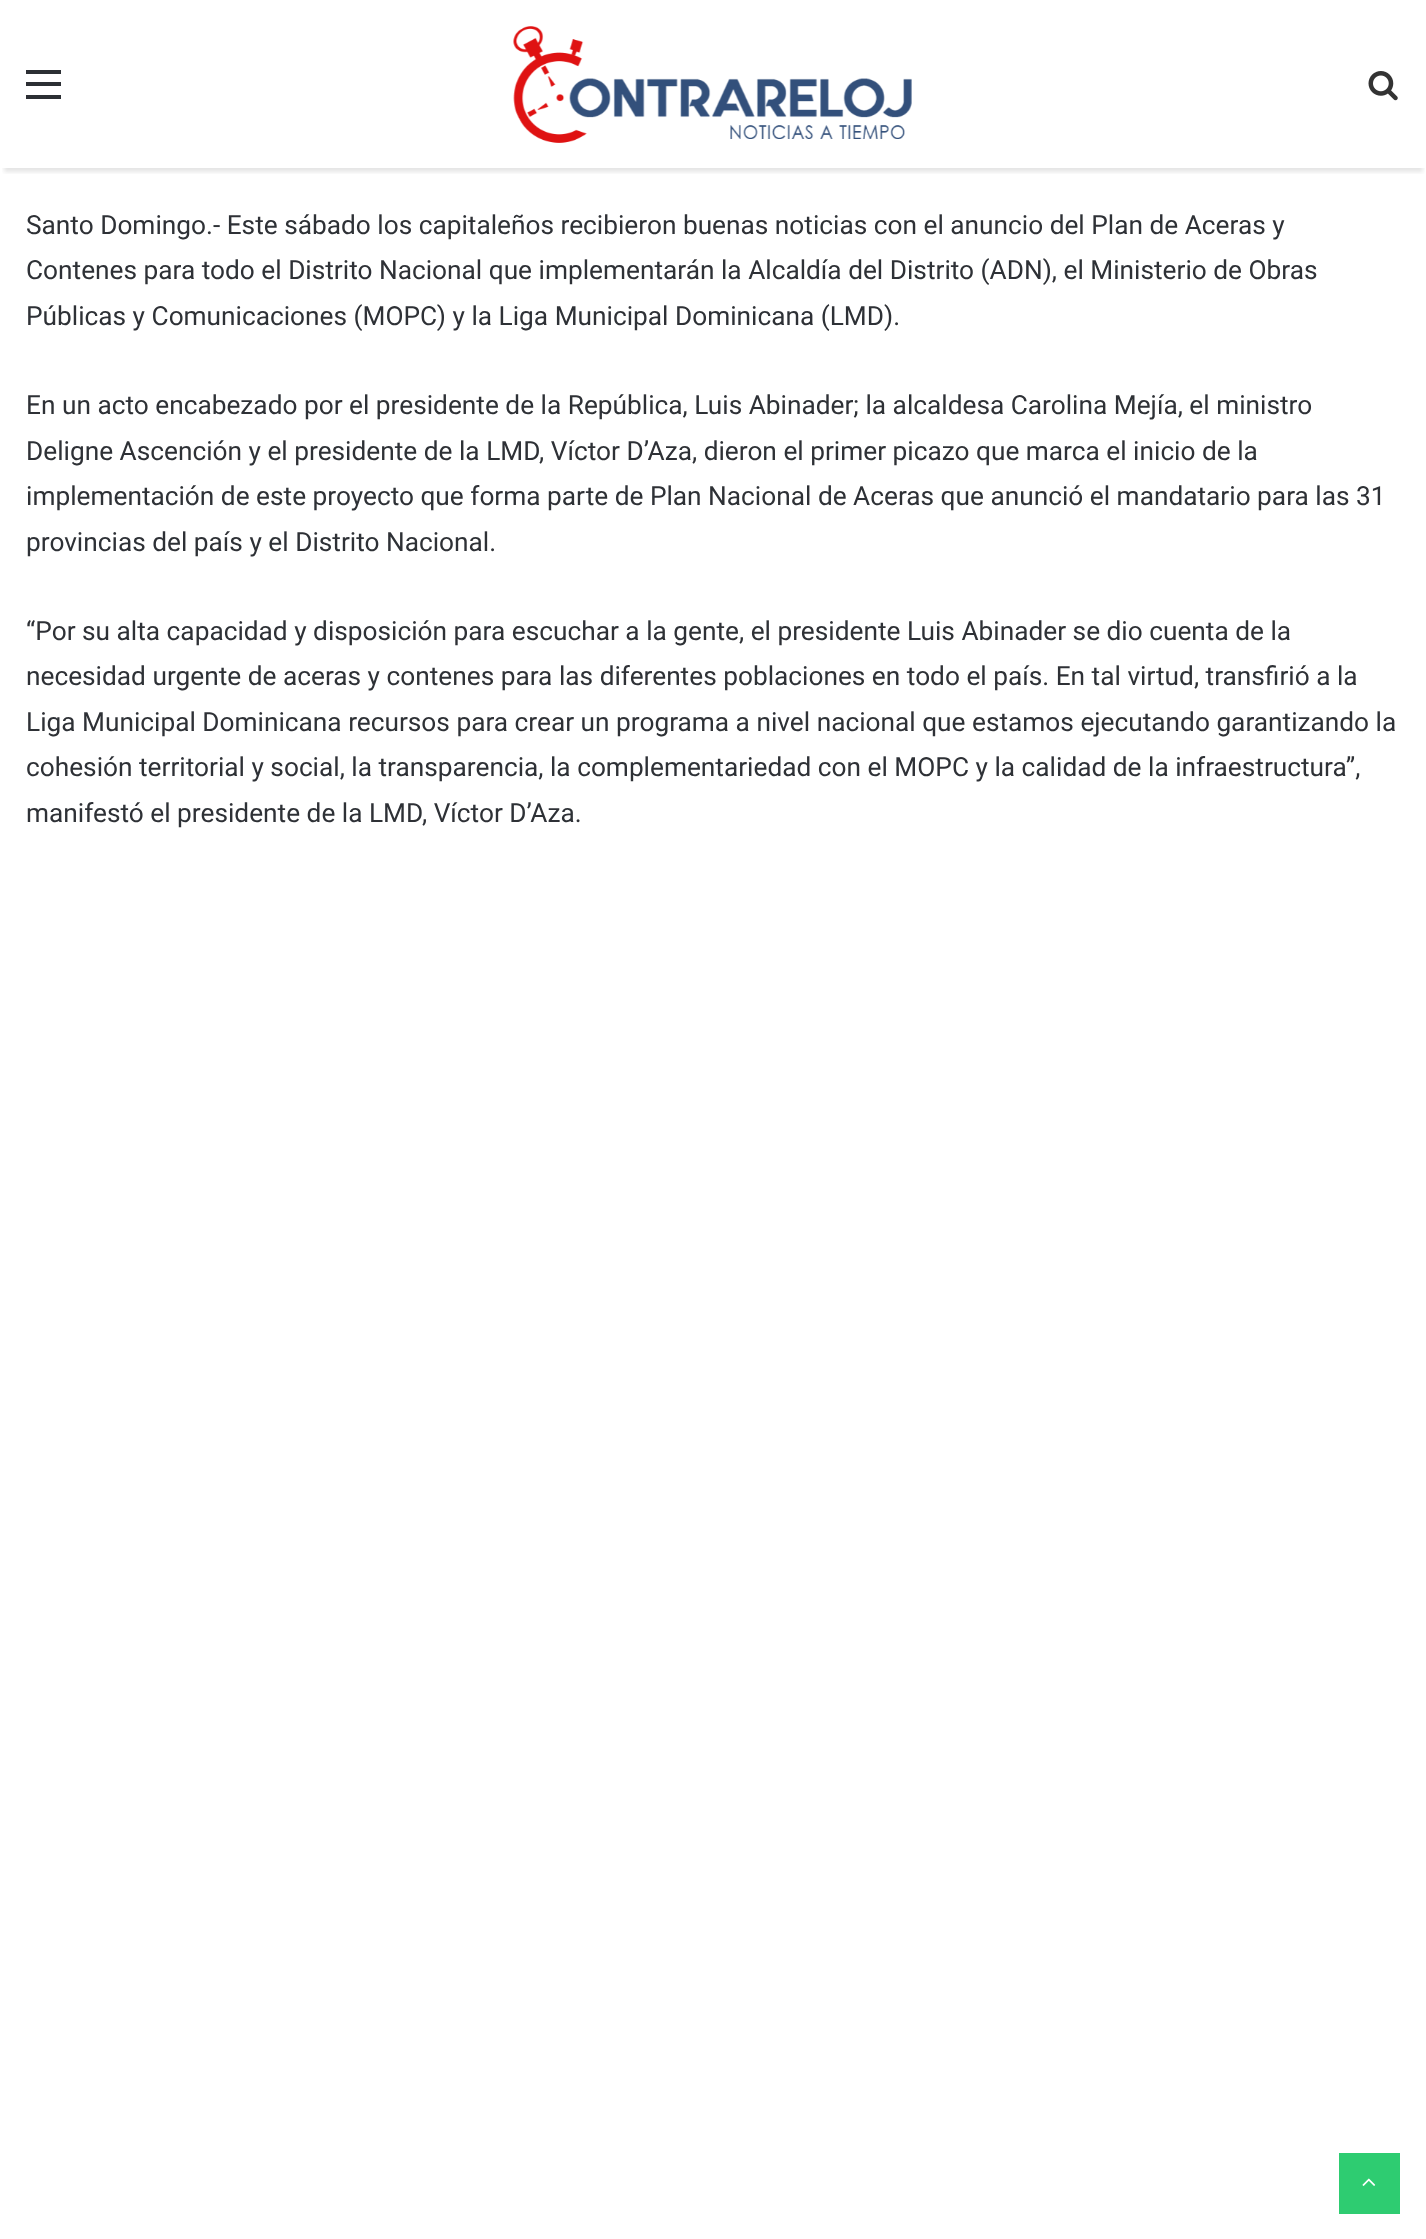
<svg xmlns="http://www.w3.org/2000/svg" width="1426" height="2239">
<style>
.a{font:26.25px Roboto;fill:#2e3136}
</style>
<defs>
<clipPath id="clip1"><path d="M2 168h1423v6H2z"/></clipPath>
</defs>
<rect width="100%" height="100%" fill="#fff"/>
<g clip-path="url(#clip1)">
<path fill="#0000001a" filter="blur(2px)" d="M4 11h1419v161H4z"/>
</g>
<path fill="#2c2f34" d="M26 82h35v4H26z"/>
<path fill="#2c2f34" d="M26 70h35v4H26z"/>
<path fill="#2c2f34" d="M26 95h35v4H26z"/>
<image href="1.png" x="513" y="26" width="399" height="117"/>
<image href="2.png" x="1368" y="71" width="30" height="30"/>
<path fill="#2ecc71" d="M1339 2153h61v61H1339z"/>
<image href="3.png" x="1362" y="2178" width="14" height="8"/>
<text class="a" x="26" y="234">Santo Domingo.- Este sábado los capitaleños recibieron buenas noticias con el anuncio del Plan de Aceras y</text>
<text class="a" x="26" y="279">Contenes para todo el Distrito Nacional que implementarán la Alcaldía del Distrito (ADN), el Ministerio de Obras</text>
<text class="a" x="26" y="325">Públicas y Comunicaciones (MOPC) y la Liga Municipal Dominicana (LMD).</text>
<text class="a" x="26" y="414">En un acto encabezado por el presidente de la República, Luis Abinader; la alcaldesa Carolina Mejía, el ministro</text>
<text class="a" x="26" y="460">Deligne Ascención y el presidente de la LMD, Víctor D’Aza, dieron el primer picazo que marca el inicio de la</text>
<text class="a" x="26" y="505">implementación de este proyecto que forma parte de Plan Nacional de Aceras que anunció el mandatario para las 31</text>
<text class="a" x="26" y="551">provincias del país y el Distrito Nacional.</text>
<text class="a" x="26" y="640">“Por su alta capacidad y disposición para escuchar a la gente, el presidente Luis Abinader se dio cuenta de la</text>
<text class="a" x="26" y="685">necesidad urgente de aceras y contenes para las diferentes poblaciones en todo el país. En tal virtud, transfirió a la</text>
<text class="a" x="26" y="731">Liga Municipal Dominicana recursos para crear un programa a nivel nacional que estamos ejecutando garantizando la</text>
<text class="a" x="26" y="776">cohesión territorial y social, la transparencia, la complementariedad con el MOPC y la calidad de la infraestructura”,</text>
<text class="a" x="26" y="822">manifestó el presidente de la LMD, Víctor D’Aza.</text>
</svg>
